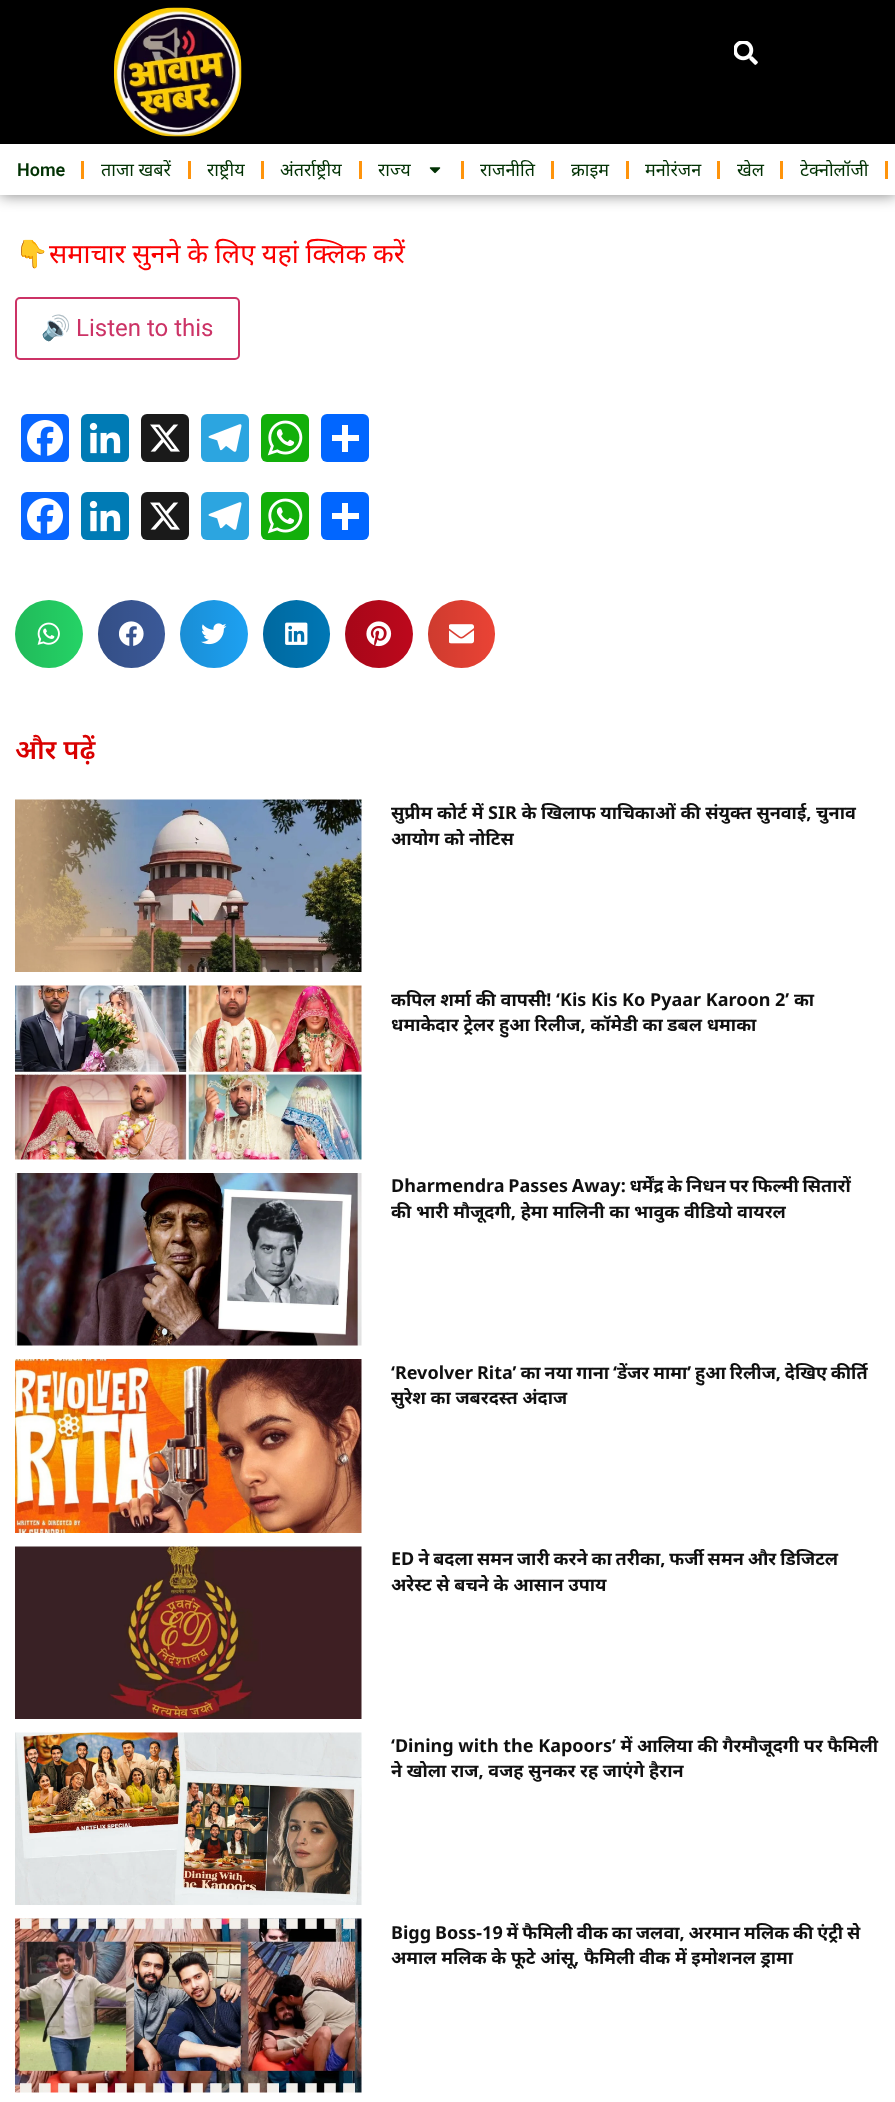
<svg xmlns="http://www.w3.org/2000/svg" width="895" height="2102">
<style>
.a{font:600 18px Roboto;fill:#013103}
.b{font:18px Noto Sans;fill:#013103}
.c{font:bold 27px Noto Color Emoji;fill:#fa0000}
.d{font:27px Noto Sans;fill:#fa0000}
.e{font:24px Noto Color Emoji;fill:#c36}
.f{font:24px Roboto;fill:#c36}
.g{font:600 27px Noto Sans;fill:#d90000}
.h{font:bold 18px Noto Sans;fill:#101010}
</style>
<defs>
<linearGradient id="g1" gradientUnits="userSpaceOnUse" x1="15" y1="634" x2="83" y2="634"><stop offset="0" stop-color="#000" stop-opacity="0.12"/><stop offset="1" stop-color="#000" stop-opacity="0"/></linearGradient>
<linearGradient id="g2" gradientUnits="userSpaceOnUse" x1="98" y1="634" x2="165" y2="634"><stop offset="0" stop-color="#000" stop-opacity="0.12"/><stop offset="1" stop-color="#000" stop-opacity="0"/></linearGradient>
<linearGradient id="g3" gradientUnits="userSpaceOnUse" x1="180" y1="634" x2="248" y2="634"><stop offset="0" stop-color="#000" stop-opacity="0.12"/><stop offset="1" stop-color="#000" stop-opacity="0"/></linearGradient>
<linearGradient id="g4" gradientUnits="userSpaceOnUse" x1="263" y1="634" x2="330" y2="634"><stop offset="0" stop-color="#000" stop-opacity="0.12"/><stop offset="1" stop-color="#000" stop-opacity="0"/></linearGradient>
<linearGradient id="g5" gradientUnits="userSpaceOnUse" x1="345" y1="634" x2="413" y2="634"><stop offset="0" stop-color="#000" stop-opacity="0.12"/><stop offset="1" stop-color="#000" stop-opacity="0"/></linearGradient>
<linearGradient id="g6" gradientUnits="userSpaceOnUse" x1="428" y1="634" x2="495" y2="634"><stop offset="0" stop-color="#000" stop-opacity="0.12"/><stop offset="1" stop-color="#000" stop-opacity="0"/></linearGradient>
</defs>
<rect width="100%" height="100%" fill="#fff"/>
<path fill="#000" d="M0 0h895v144H0z"/>
<image href="1.png" x="114" y="7" width="128" height="130"/>
<image href="2.png" x="734" y="41" width="24" height="24"/>
<path fill="#00000080" filter="blur(7.5px)" d="M0 144h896v51H0z"/>
<path fill="#fff" d="M0 144h895v51H0z"/>
<path fill="#ff940c" d="M81 161h3v18H81z"/>
<path fill="#ff940c" d="M188 161h3v18H188z"/>
<path fill="#ff940c" d="M261 161h3v18H261z"/>
<path fill="#ff940c" d="M359 161h3v18H359z"/>
<image href="3.png" x="429" y="167" width="12" height="7"/>
<path fill="#ff940c" d="M461 161h3v18H461z"/>
<path fill="#ff940c" d="M551 161h3v18H551z"/>
<path fill="#ff940c" d="M626 161h3v18H626z"/>
<path fill="#ff940c" d="M717 161h3v18H717z"/>
<path fill="#ff940c" d="M780 161h3v18H780z"/>
<path fill="#ff940c" d="M885 161h3v18H885z"/>
<rect fill="none" stroke="#c36" stroke-width="2" x="16" y="298" width="223" height="61" rx="4"/>
<rect fill="#0866ff" x="21" y="414" width="48" height="48" rx="6"/>
<image href="4.png" x="27" y="420" width="36" height="36"/>
<rect fill="#007bb5" x="81" y="414" width="48" height="48" rx="6"/>
<image href="5.png" x="89" y="422" width="32" height="32"/>
<rect fill="#1a1a1a" x="141" y="414" width="48" height="48" rx="6"/>
<image href="6.png" x="150" y="424" width="30" height="28"/>
<rect fill="#2ca5e0" x="201" y="414" width="48" height="48" rx="6"/>
<image href="7.png" x="208" y="424" width="34" height="28"/>
<rect fill="#12af0a" x="261" y="414" width="48" height="48" rx="6"/>
<image href="8.png" x="267" y="420" width="36" height="36"/>
<rect fill="#0166ff" x="321" y="414" width="48" height="48" rx="6"/>
<path fill="#fff" d="M342 425h6v27H342z"/>
<path fill="#fff" d="M332 435h27v6H332z"/>
<rect fill="#0866ff" x="21" y="492" width="48" height="48" rx="6"/>
<image href="4.png" x="27" y="498" width="36" height="36"/>
<rect fill="#007bb5" x="81" y="492" width="48" height="48" rx="6"/>
<image href="5.png" x="89" y="500" width="32" height="32"/>
<rect fill="#1a1a1a" x="141" y="492" width="48" height="48" rx="6"/>
<image href="6.png" x="150" y="502" width="30" height="28"/>
<rect fill="#2ca5e0" x="201" y="492" width="48" height="48" rx="6"/>
<image href="7.png" x="208" y="502" width="34" height="28"/>
<rect fill="#12af0a" x="261" y="492" width="48" height="48" rx="6"/>
<image href="8.png" x="267" y="498" width="36" height="36"/>
<rect fill="#0166ff" x="321" y="492" width="48" height="48" rx="6"/>
<path fill="#fff" d="M342 503h6v27H342z"/>
<path fill="#fff" d="M332 513h27v6H332z"/>
<circle fill="#25d366" cx="49" cy="634" r="34"/>
<circle fill="url(#g1)" cx="49" cy="634" r="34"/>
<image href="9.png" x="37" y="622" width="23" height="23"/>
<rect fill="#3b5998" x="98" y="600" width="67" height="68" rx="33.5"/>
<rect fill="url(#g2)" x="98" y="600" width="67" height="68" rx="33.5"/>
<image href="10.png" x="119" y="621" width="25" height="25"/>
<circle fill="#1da1f2" cx="214" cy="634" r="34"/>
<circle fill="url(#g3)" cx="214" cy="634" r="34"/>
<image href="11.png" x="201" y="623" width="26" height="22"/>
<rect fill="#0077b5" x="263" y="600" width="67" height="68" rx="33.5"/>
<rect fill="url(#g4)" x="263" y="600" width="67" height="68" rx="33.5"/>
<image href="12.png" x="285" y="622" width="23" height="23"/>
<circle fill="#bd081c" cx="379" cy="634" r="34"/>
<circle fill="url(#g5)" cx="379" cy="634" r="34"/>
<image href="13.png" x="366" y="621" width="26" height="26"/>
<rect fill="#ea4335" x="428" y="600" width="67" height="68" rx="33.5"/>
<rect fill="url(#g6)" x="428" y="600" width="67" height="68" rx="33.5"/>
<image href="14.png" x="449" y="624" width="25" height="20"/>
<image href="15.png" x="15" y="799" width="347" height="173"/>
<image href="16.png" x="15" y="985" width="347" height="175"/>
<image href="17.png" x="15" y="1173" width="347" height="173"/>
<image href="18.png" x="15" y="1359" width="347" height="174"/>
<image href="19.png" x="15" y="1546" width="347" height="173"/>
<image href="20.png" x="15" y="1732" width="347" height="173"/>
<image href="21.png" x="15" y="1918" width="347" height="175"/>
<text class="a" x="17" y="176">Home</text>
<text class="b" x="101" y="176">ताजा खबरें</text>
<text class="b" x="207" y="176">राष्ट्रीय</text>
<text class="b" x="280" y="176">अंतर्राष्ट्रीय</text>
<text class="b" x="378" y="176">राज्य</text>
<text class="b" x="480" y="176">राजनीति</text>
<text class="b" x="571" y="176">क्राइम</text>
<text class="b" x="645" y="176">मनोरंजन</text>
<text class="b" x="737" y="176">खेल</text>
<text class="b" x="800" y="176">टेक्नोलॉजी</text>
<text class="c" x="15" y="263">👇</text>
<text class="d" x="49" y="263" word-spacing="-0.25">समाचार सुनने के लिए यहां क्लिक करें</text>
<text class="e" x="41" y="336">🔊</text>
<text class="f" x="76" y="336">Listen to this</text>
<text class="g" x="15" y="759">और पढ़ें</text>
<text class="h" x="391" y="819">सुप्रीम कोर्ट में SIR के खिलाफ याचिकाओं की संयुक्त सुनवाई, चुनाव</text>
<text class="h" x="391" y="845">आयोग को नोटिस</text>
<text class="h" x="391" y="1006">कपिल शर्मा की वापसी! ‘Kis Kis Ko Pyaar Karoon 2’ का</text>
<text class="h" x="391" y="1031">धमाकेदार ट्रेलर हुआ रिलीज, कॉमेडी का डबल धमाका</text>
<text class="h" x="391" y="1192" word-spacing="-1">Dharmendra Passes Away: धर्मेंद्र के निधन पर फिल्मी सितारों</text>
<text class="h" x="391" y="1218">की भारी मौजूदगी, हेमा मालिनी का भावुक वीडियो वायरल</text>
<text class="h" x="391" y="1379" word-spacing="-0.75">‘Revolver Rita’ का नया गाना ‘डेंजर मामा’ हुआ रिलीज, देखिए कीर्ति</text>
<text class="h" x="391" y="1404">सुरेश का जबरदस्त अंदाज</text>
<text class="h" x="391" y="1565" word-spacing="-0.75">ED ने बदला समन जारी करने का तरीका, फर्जी समन और डिजिटल</text>
<text class="h" x="391" y="1591">अरेस्ट से बचने के आसान उपाय</text>
<text class="h" x="391" y="1752">‘Dining with the Kapoors’ में आलिया की गैरमौजूदगी पर फैमिली</text>
<text class="h" x="391" y="1777">ने खोला राज, वजह सुनकर रह जाएंगे हैरान</text>
<text class="h" x="391" y="1939" word-spacing="-0.75">Bigg Boss-19 में फैमिली वीक का जलवा, अरमान मलिक की एंट्री से</text>
<text class="h" x="391" y="1964">अमाल मलिक के फूटे आंसू, फैमिली वीक में इमोशनल ड्रामा</text>
</svg>
